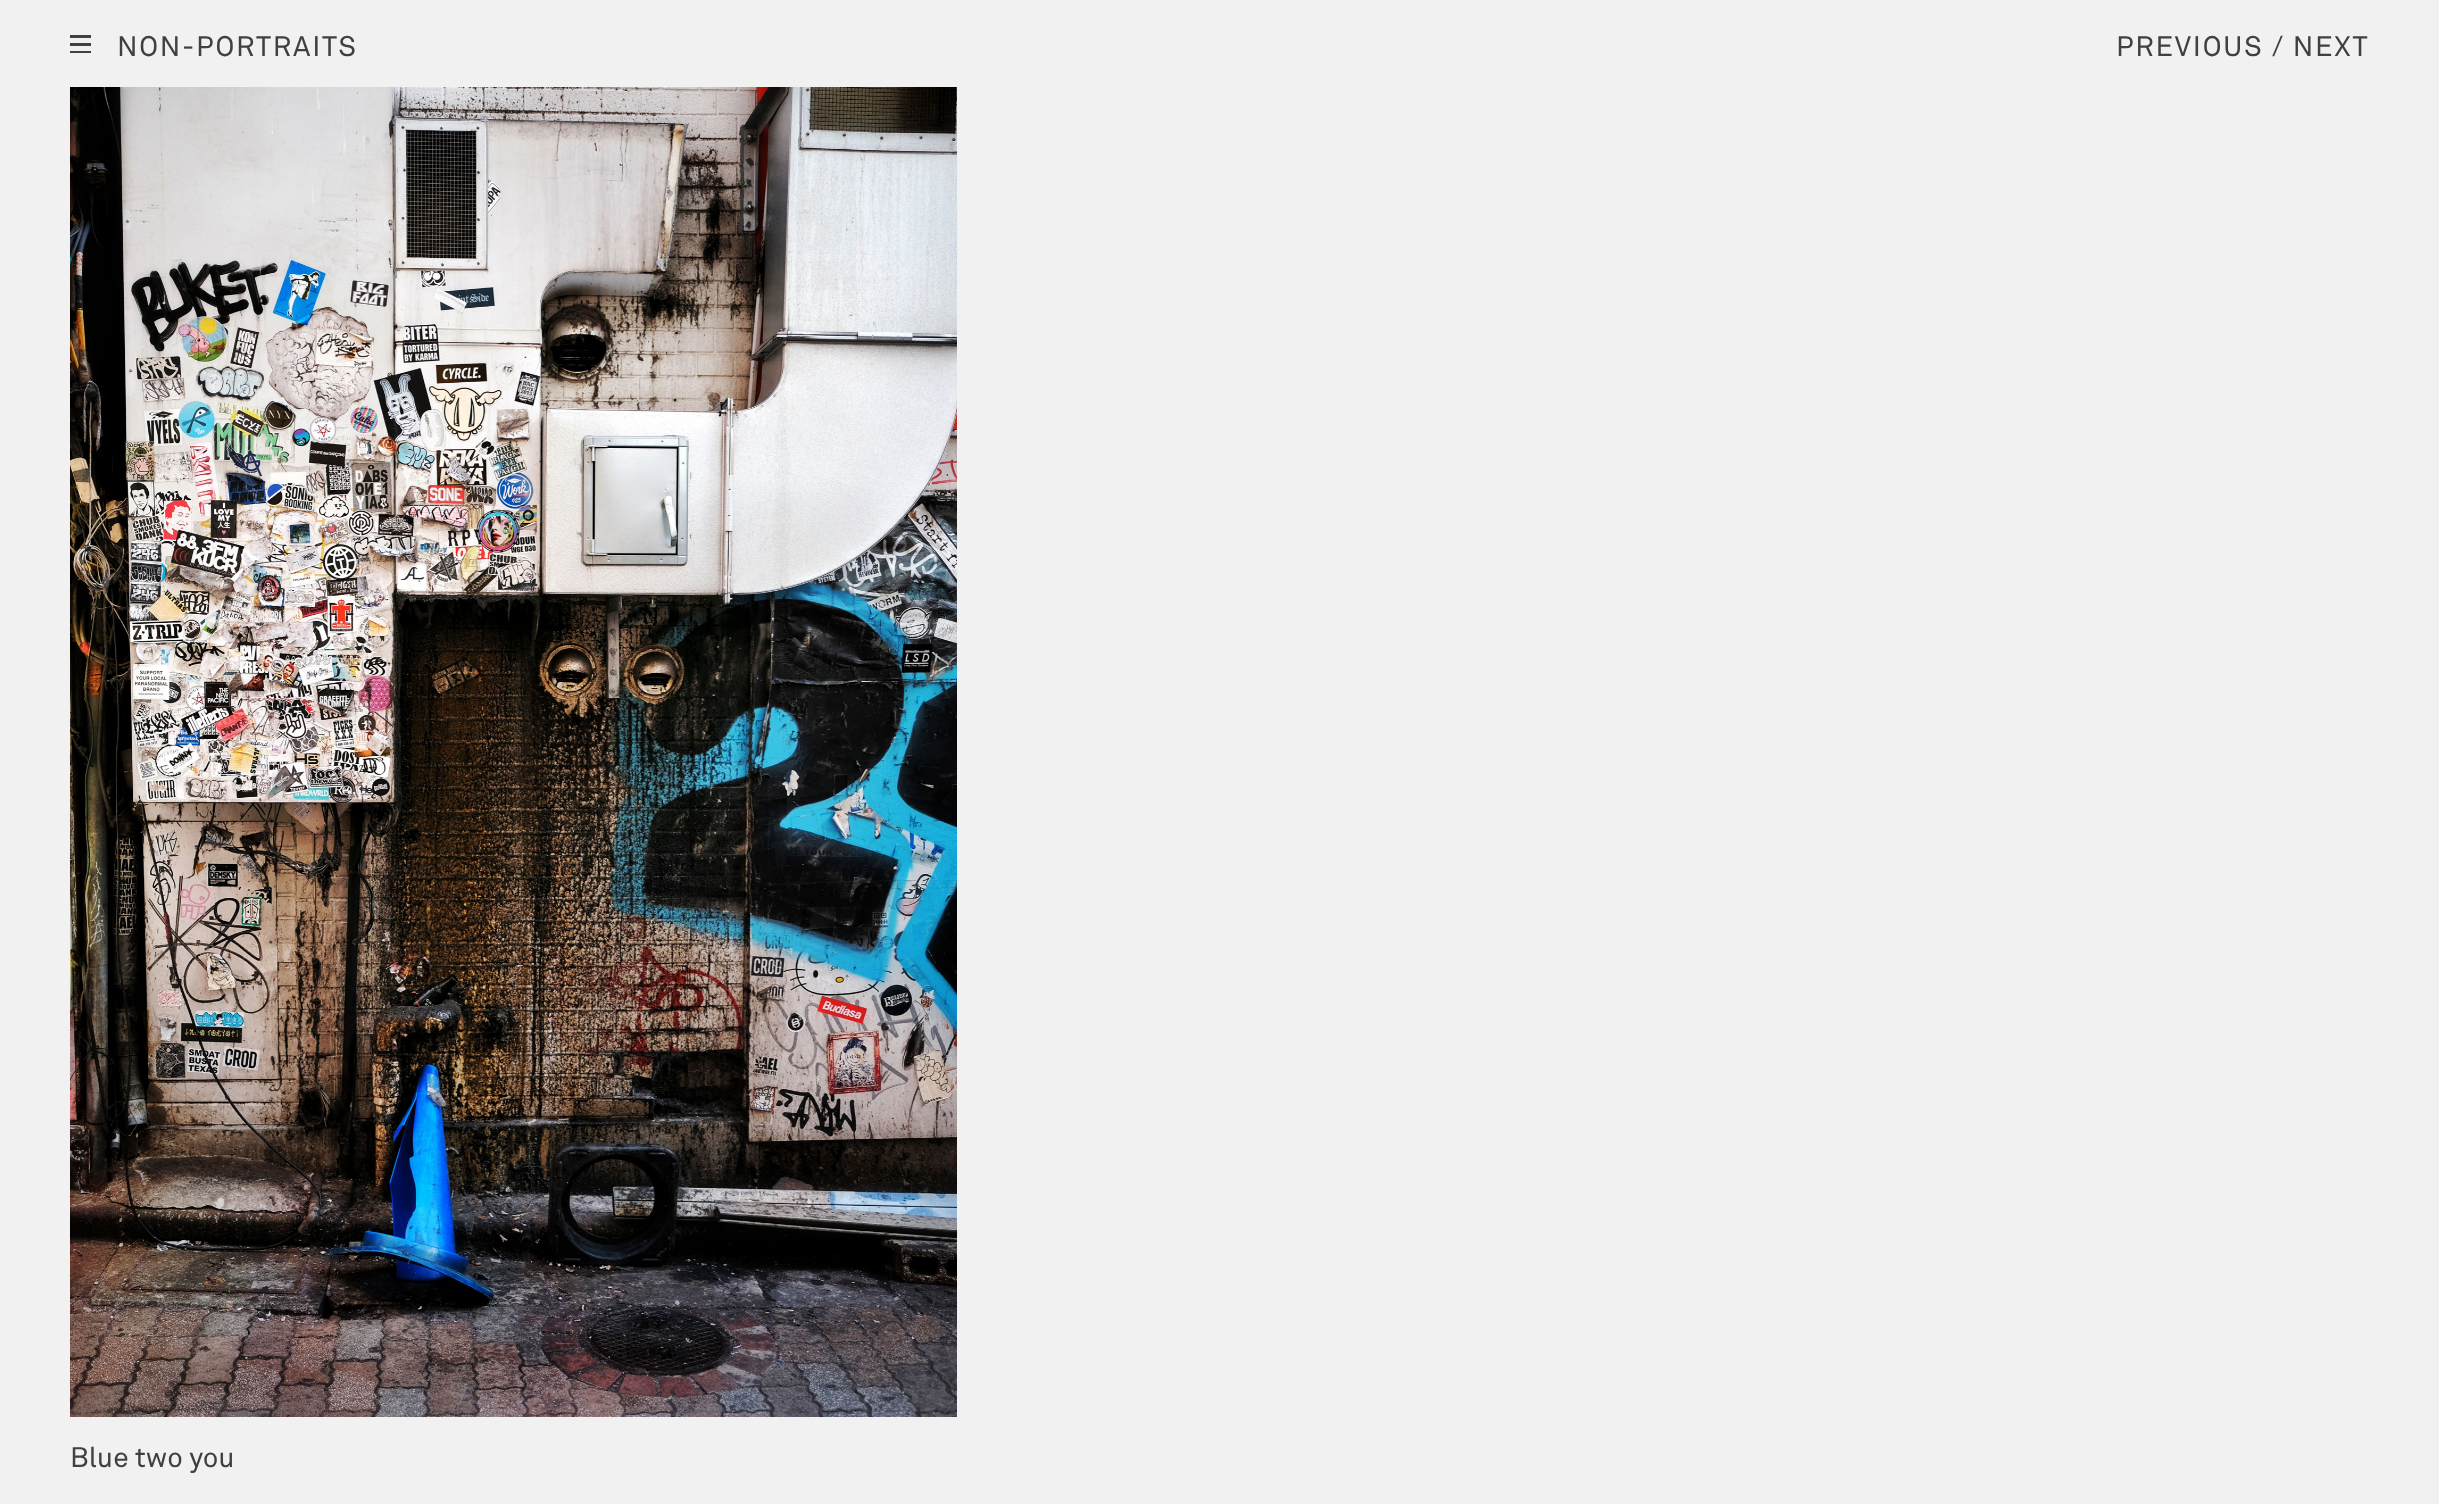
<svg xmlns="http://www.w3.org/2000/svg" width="2439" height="1504">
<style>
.a{font:28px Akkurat;letter-spacing:1.75px;fill:#404040}
.b{font:28px Akkurat;fill:#404040}
</style>
<rect width="100%" height="100%" fill="#f1f1f1"/>
<path fill="#404040" d="M70 35h21v3H70z"/>
<path fill="#404040" d="M70 43h21v3H70z"/>
<path fill="#404040" d="M70 51h21v2H70z"/>
<image href="1.png" x="70" y="87" width="887" height="1330"/>
<text class="a" x="117" y="56">NON-PORTRAITS</text>
<text class="a" x="2116" y="56">PREVIOUS / NEXT</text>
<text class="b" x="70" y="1467">Blue two you</text>
</svg>
